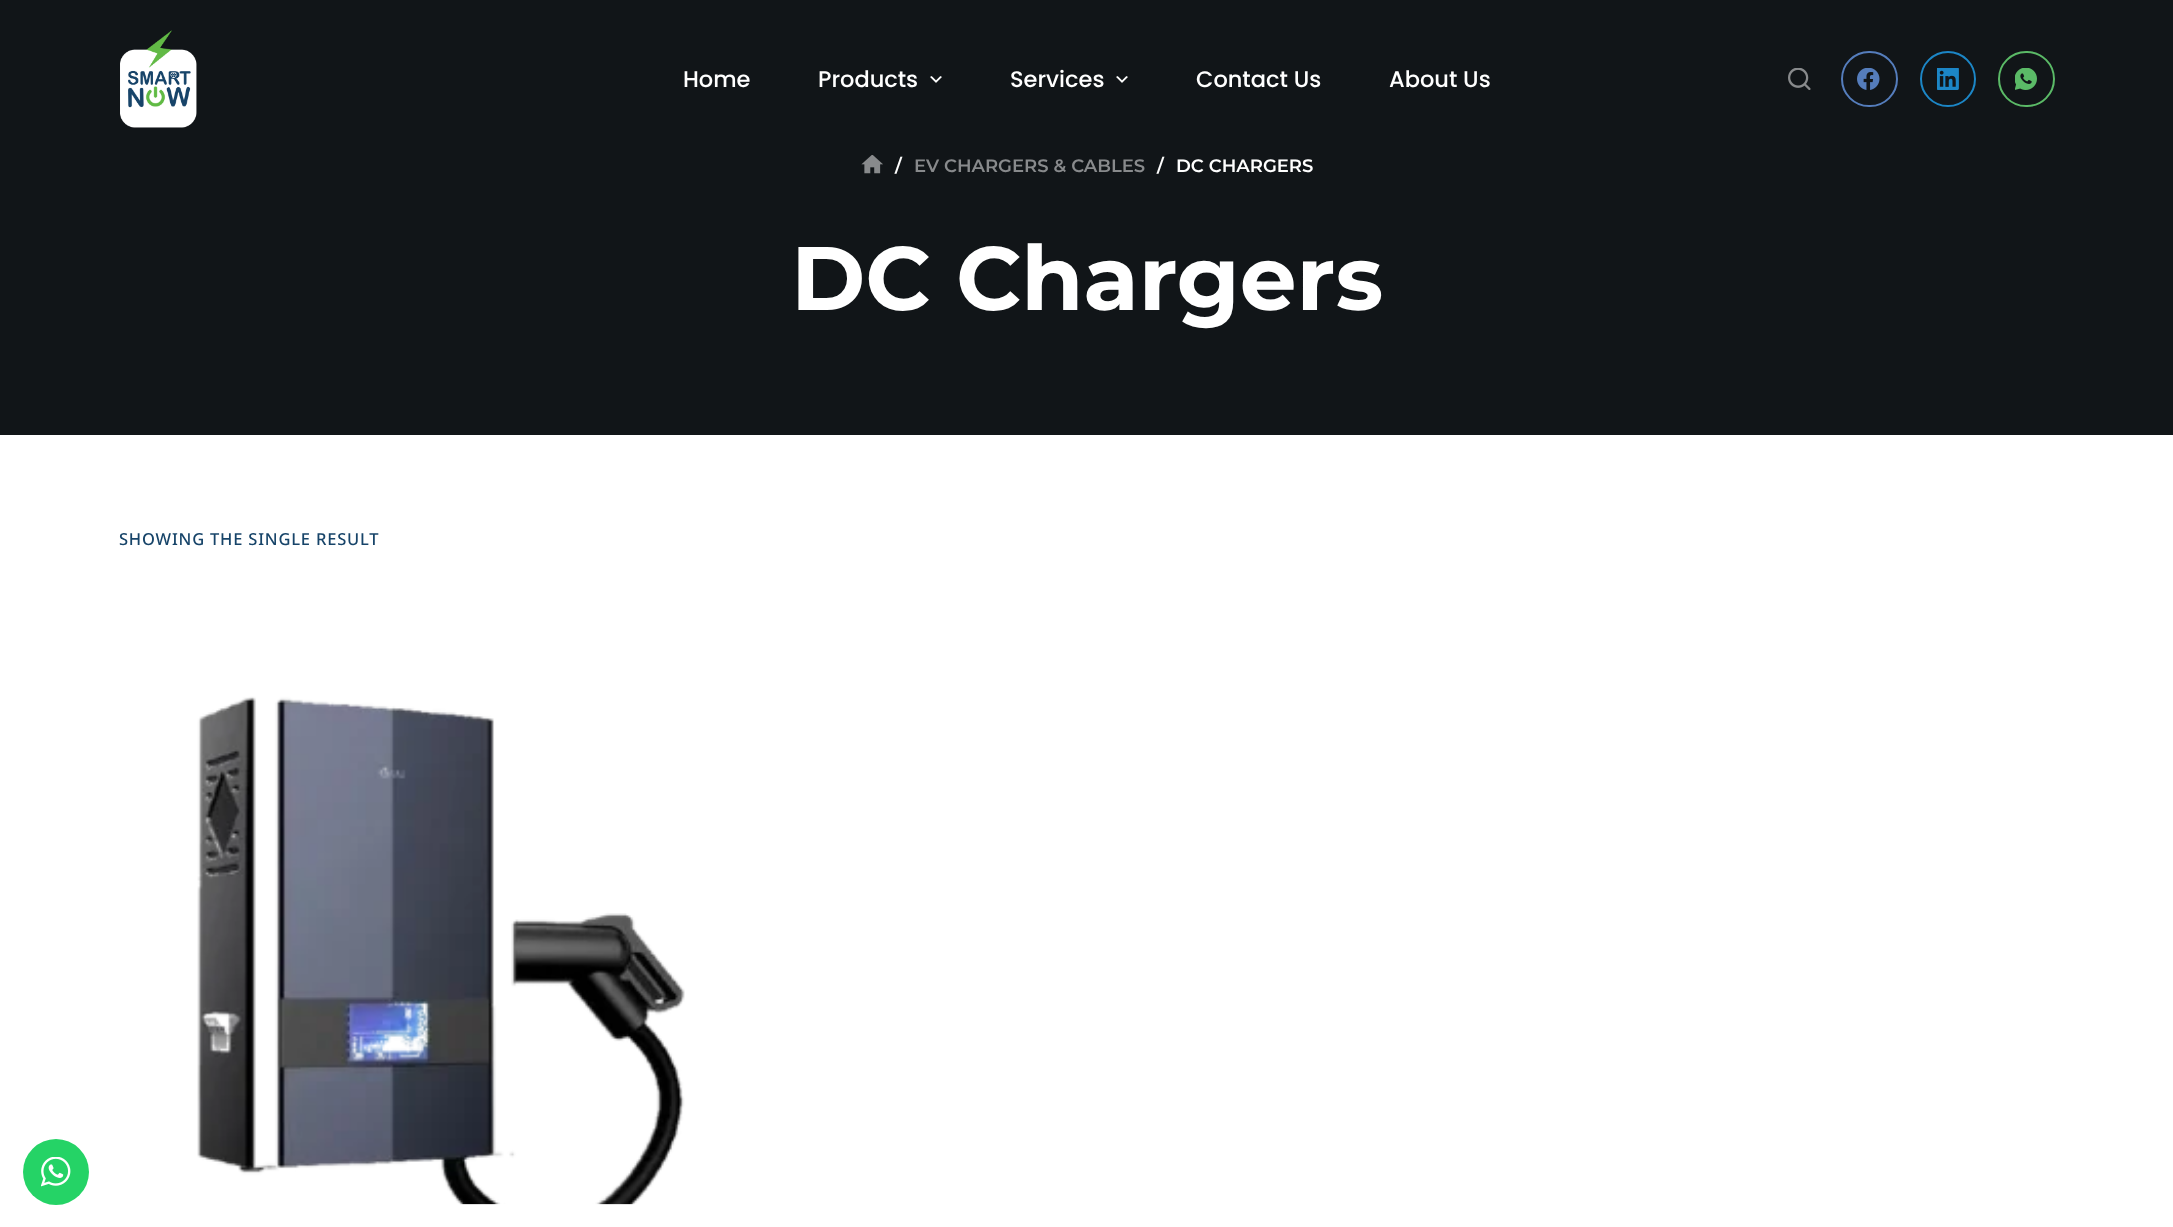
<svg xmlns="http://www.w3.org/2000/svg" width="2173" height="1227">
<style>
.a{font:500 22.5px Poppins;fill:#fff}
.b{font:600 18px Montserrat;fill:#fff}
.c{font:600 18px Montserrat;fill:#888a8c}
.d{font:bold 90px Montserrat;fill:#fff}
.e{font:500 16.5px Noto Sans;letter-spacing:0.8px;fill:#174469}
</style>
<rect width="100%" height="100%" fill="#fff"/>
<path fill="#111518" d="M0 0h2173v435H0z"/>
<image href="1.png" x="120" y="30" width="77" height="98"/>
<image href="2.png" x="930" y="76" width="12" height="7"/>
<image href="2.png" x="1116" y="76" width="12" height="7"/>
<image href="3.png" x="1788" y="68" width="23" height="22"/>
<rect fill="none" stroke="#557dbc" stroke-width="2" x="1842" y="52" width="55" height="54" rx="27"/>
<image href="4.png" x="1857" y="68" width="23" height="22"/>
<circle fill="none" stroke="#1c86c6" stroke-width="2" cx="1948" cy="79" r="27"/>
<image href="5.png" x="1937" y="68" width="22" height="22"/>
<rect fill="none" stroke="#5bba67" stroke-width="2" x="1999" y="52" width="55" height="54" rx="27"/>
<image href="6.png" x="2015" y="68" width="22" height="22"/>
<image href="7.png" x="861" y="155" width="22" height="19"/>
<image href="8.png" x="197" y="696" width="488" height="509"/>
<circle fill="#25d366" cx="56" cy="1172" r="33"/>
<image href="9.png" x="41" y="1157" width="30" height="30"/>
<text class="a" x="683" y="87">Home</text>
<text class="a" x="818" y="87">Products</text>
<text class="a" x="1010" y="87">Services</text>
<text class="a" x="1196" y="87">Contact Us</text>
<text class="a" x="1389" y="87">About Us</text>
<text class="b" x="895" y="172">/</text>
<text class="c" x="914" y="172">EV CHARGERS &amp; CABLES</text>
<text class="b" x="1157" y="172">/</text>
<text class="b" x="1176" y="172">DC CHARGERS</text>
<text class="d" x="791" y="310">DC Chargers</text>
<text class="e" x="119" y="545">SHOWING THE SINGLE RESULT</text>
</svg>
